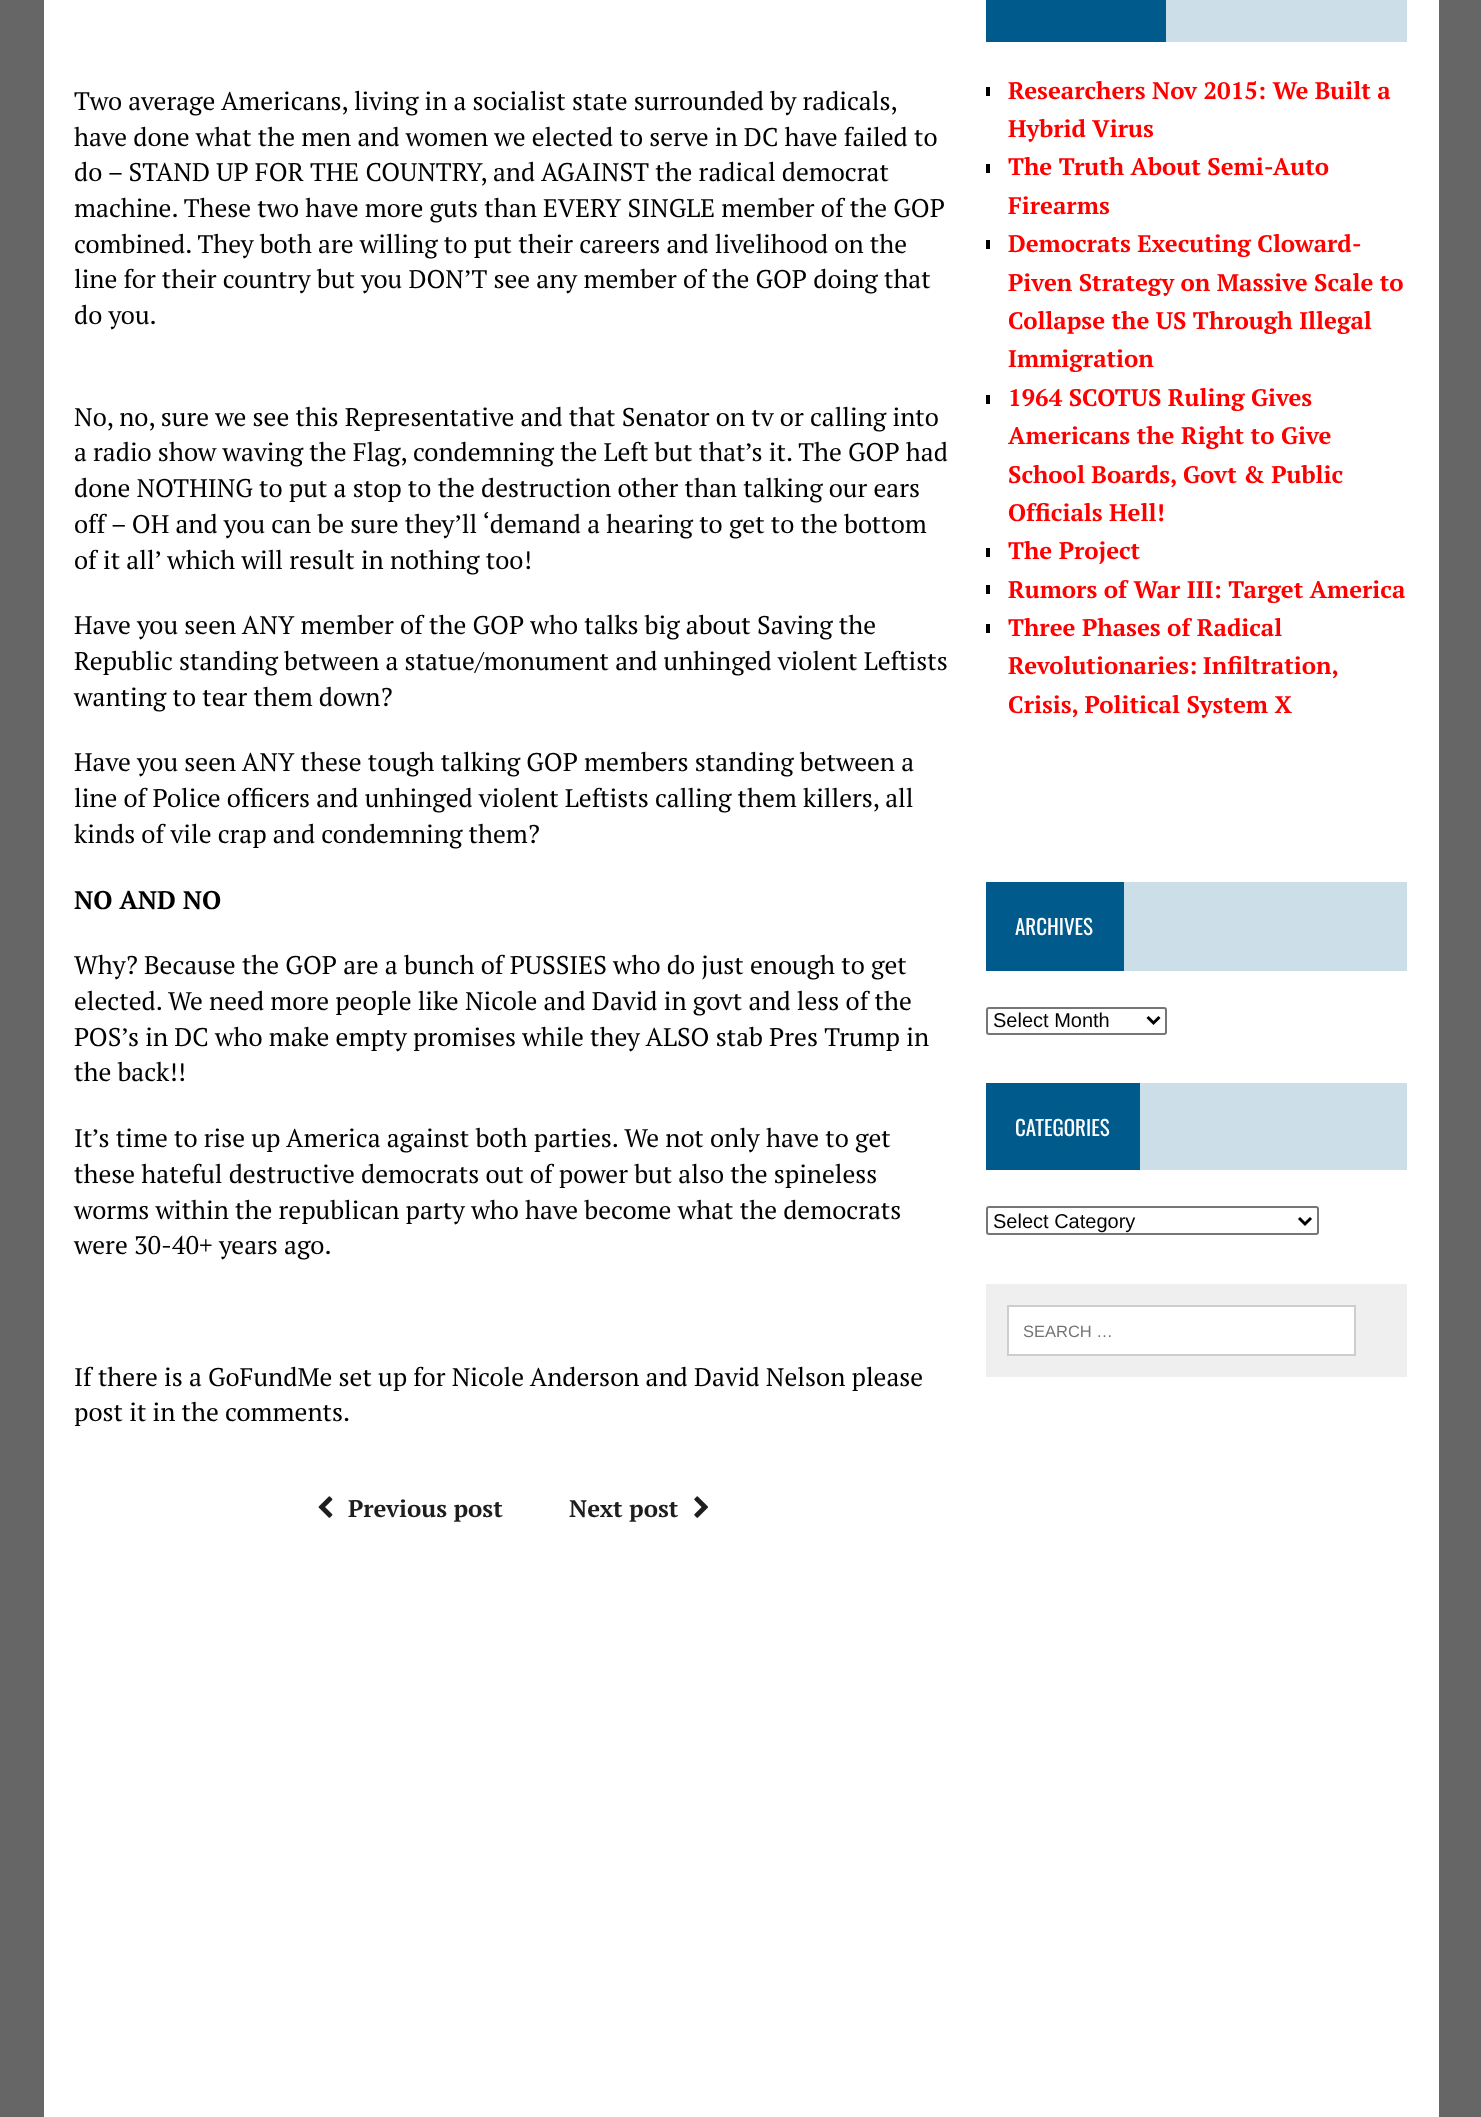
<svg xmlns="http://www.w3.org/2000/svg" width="1481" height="2117">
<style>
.a{font:25.5px PT Serif;fill:#000}
.b{font:bold 25.5px PT Serif;fill:#000}
.c{font:bold 24px PT Serif;fill:#1f1e1e}
.d{font:bold 24px PT Serif;fill:#f00}
.e{font:21px Oswald;fill:#fff}
.f{font:20px Liberation Sans;fill:#000}
.g{font:16.5px Liberation Sans;fill:#757575}
</style>
<rect width="100%" height="100%" fill="#666"/>
<path fill="#fff" d="M44 0h1395v2117H44z"/>
<image href="1.png" x="318" y="1496" width="15" height="22"/>
<image href="2.png" x="694" y="1496" width="14" height="22"/>
<path fill="#ccdee8" d="M1166 0h241v42H1166z"/>
<path fill="#005a8c" d="M986 0h180v42H986z"/>
<path fill="#000" d="M986 87h4v9H986z"/>
<path fill="#000" d="M986 164h4v9H986z"/>
<path fill="#000" d="M986 240h4v9H986z"/>
<path fill="#000" d="M986 395h4v9H986z"/>
<path fill="#000" d="M986 548h4v9H986z"/>
<path fill="#000" d="M986 585h4v9H986z"/>
<path fill="#000" d="M986 624h4v9H986z"/>
<path fill="#ccdee8" d="M1124 882h283v89H1124z"/>
<path fill="#005a8c" d="M986 882h138v89H986z"/>
<rect fill="none" stroke="#767676" stroke-width="2" x="987" y="1008" width="179" height="26" rx="2"/>
<path fill="none" stroke="#000" stroke-width="3" d="M1147.5 1017l6 6l6-6"/>
<path fill="#ccdee8" d="M1140 1083h267v87H1140z"/>
<path fill="#005a8c" d="M986 1083h154v87H986z"/>
<rect fill="none" stroke="#767676" stroke-width="2" x="987" y="1207" width="331" height="27" rx="2"/>
<path fill="none" stroke="#000" stroke-width="3" d="M1299 1218l6 6l6-6"/>
<path fill="#efefef" d="M986 1284h421v93H986z"/>
<path fill="#fff" stroke="#cdcdcd" stroke-width="2" d="M1008 1306h347v49H1008z"/>
<text class="a" x="74" y="110" word-spacing="-0.1">Two average Americans, living in a socialist state surrounded by radicals,</text>
<text class="a" x="74" y="146">have done what the men and women we elected to serve in DC have failed to</text>
<text class="a" x="74" y="181">do – STAND UP FOR THE COUNTRY, and AGAINST the radical democrat</text>
<text class="a" x="74" y="217">machine. These two have more guts than EVERY SINGLE member of the GOP</text>
<text class="a" x="74" y="253">combined. They both are willing to put their careers and livelihood on the</text>
<text class="a" x="74" y="288">line for their country but you DON’T see any member of the GOP doing that</text>
<text class="a" x="74" y="324">do you.</text>
<text class="a" x="74" y="426">No, no, sure we see this Representative and that Senator on tv or calling into</text>
<text class="a" x="74" y="461">a radio show waving the Flag, condemning the Left but that’s it. The GOP had</text>
<text class="a" x="74" y="497">done NOTHING to put a stop to the destruction other than talking our ears</text>
<text class="a" x="74" y="533">off – OH and you can be sure they’ll ‘demand a hearing to get to the bottom</text>
<text class="a" x="74" y="569">of it all’ which will result in nothing too!</text>
<text class="a" x="74" y="634">Have you seen ANY member of the GOP who talks big about Saving the</text>
<text class="a" x="74" y="670">Republic standing between a statue/monument and unhinged violent Leftists</text>
<text class="a" x="74" y="706">wanting to tear them down?</text>
<text class="a" x="74" y="771">Have you seen ANY these tough talking GOP members standing between a</text>
<text class="a" x="74" y="807">line of Police officers and unhinged violent Leftists calling them killers, all</text>
<text class="a" x="74" y="843">kinds of vile crap and condemning them?</text>
<text class="b" x="74" y="909">NO AND NO</text>
<text class="a" x="74" y="974">Why? Because the GOP are a bunch of PUSSIES who do just enough to get</text>
<text class="a" x="74" y="1010">elected. We need more people like Nicole and David in govt and less of the</text>
<text class="a" x="74" y="1046">POS’s in DC who make empty promises while they ALSO stab Pres Trump in</text>
<text class="a" x="74" y="1081">the back!!</text>
<text class="a" x="74" y="1147">It’s time to rise up America against both parties. We not only have to get</text>
<text class="a" x="74" y="1183">these hateful destructive democrats out of power but also the spineless</text>
<text class="a" x="74" y="1219">worms within the republican party who have become what the democrats</text>
<text class="a" x="74" y="1254">were 30-40+ years ago.</text>
<text class="a" x="74" y="1386">If there is a GoFundMe set up for Nicole Anderson and David Nelson please</text>
<text class="a" x="74" y="1421">post it in the comments.</text>
<text class="c" x="348" y="1517">Previous post</text>
<text class="c" x="569" y="1517">Next post</text>
<text class="d" x="1008" y="99">Researchers Nov 2015: We Built a</text>
<text class="d" x="1008" y="137">Hybrid Virus</text>
<text class="d" x="1008" y="175">The Truth About Semi-Auto</text>
<text class="d" x="1008" y="214">Firearms</text>
<text class="d" x="1008" y="252">Democrats Executing Cloward-</text>
<text class="d" x="1008" y="291">Piven Strategy on Massive Scale to</text>
<text class="d" x="1008" y="329">Collapse the US Through Illegal</text>
<text class="d" x="1008" y="367">Immigration</text>
<text class="d" x="1008" y="406">1964 SCOTUS Ruling Gives</text>
<text class="d" x="1008" y="444">Americans the Right to Give</text>
<text class="d" x="1008" y="483">School Boards, Govt &amp; Public</text>
<text class="d" x="1008" y="521">Officials Hell!</text>
<text class="d" x="1008" y="559">The Project</text>
<text class="d" x="1008" y="598">Rumors of War III: Target America</text>
<text class="d" x="1008" y="636">Three Phases of Radical</text>
<text class="d" x="1008" y="674" word-spacing="-1">Revolutionaries: Infiltration,</text>
<text class="d" x="1008" y="713">Crisis, Political System X</text>
<text class="e" x="1015" y="935">ARCHIVES</text>
<text class="f" x="993" y="1027">Select Month</text>
<text class="e" x="1015" y="1136">CATEGORIES</text>
<text class="f" x="993" y="1228">Select Category</text>
<text class="g" x="1023" y="1337">SEARCH …</text>
</svg>
